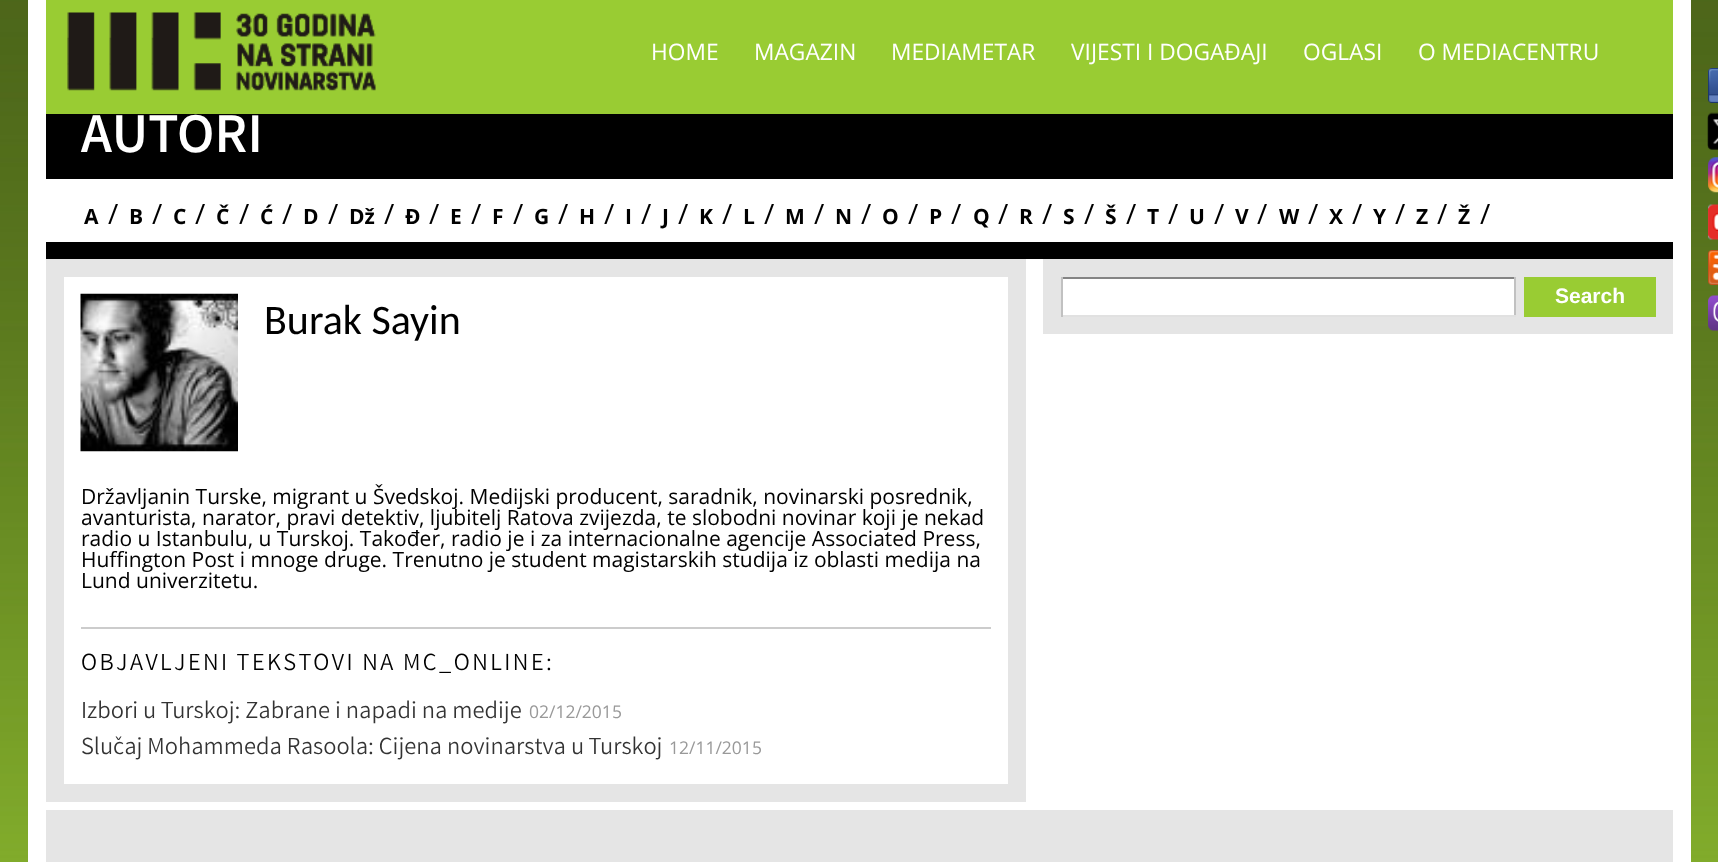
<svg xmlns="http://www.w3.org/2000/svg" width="1718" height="862">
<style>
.a{font:22.75px Open Sans;fill:#fff}
.b{font:bold 56px Varta;fill:#fff}
.c{font:bold 21px Open Sans;fill:#000}
.d{font:28px Open Sans;fill:#000}
.e{font:bold 21px Liberation Sans;fill:#fff}
.f{font:42px Carlito;fill:#000}
.g{font:21px Open Sans;fill:#000}
.h{font:300 24.5px Varta;letter-spacing:2.45px;fill:#000}
.i{font:300 24.5px Varta;fill:#333}
.j{font:17.5px Open Sans;fill:#999}
</style>
<rect width="100%" height="100%" fill="#fff"/>
<image href="1.png" x="0" y="0" width="1718" height="862"/>
<path fill="#fff" d="M28 0h1663v862H28z"/>
<path fill="#9c3" d="M46 0h1627v114H46z"/>
<image href="2.png" x="67" y="12" width="309" height="79"/>
<image href="3.png" x="1708" y="68" width="10" height="35"/>
<image href="4.png" x="1707" y="112" width="11" height="38"/>
<image href="5.png" x="1708" y="157" width="10" height="36"/>
<image href="6.png" x="1708" y="204" width="10" height="36"/>
<image href="7.png" x="1708" y="250" width="10" height="35"/>
<image href="8.png" x="1708" y="295" width="10" height="36"/>
<path fill="#000" d="M46 114h1627v65H46z"/>
<path fill="#000" d="M46 242h1627v17H46z"/>
<path fill="none" stroke="#e5e5e5" stroke-width="18" d="M1052 268h612v57H1052z"/>
<path fill="#e5e5e5" d="M1516 277h8v40H1516z"/>
<path fill="#848484" d="M1061 277h455v2H1061z"/>
<path fill="#c1c1c1" d="M1514 277h2v40H1514z"/>
<path fill="#e1e1e1" d="M1061 315h455v2H1061z"/>
<path fill="#c1c1c1" d="M1061 277h2v40H1061z"/>
<path fill="#9c3" d="M1524 277h132v40H1524z"/>
<path fill="none" stroke="#e5e5e5" stroke-width="18" d="M55 268h962v525H55z"/>
<image href="9.png" x="80" y="293" width="158" height="159"/>
<path fill="#ccc" d="M81 627h910v2H81z"/>
<path fill="#e5e5e5" d="M46 810h1627v52H46z"/>
<text class="a" x="651" y="60">HOME</text>
<text class="a" x="754" y="60">MAGAZIN</text>
<text class="a" x="891" y="60">MEDIAMETAR</text>
<text class="a" x="1071" y="60">VIJESTI I DOGAĐAJI</text>
<text class="a" x="1303" y="60">OGLASI</text>
<text class="a" x="1418" y="60">O MEDIACENTRU</text>
<text class="b" x="81" y="152">AUTORI</text>
<text class="c" x="84" y="224">A</text>
<text class="d" x="108" y="224">/</text>
<text class="c" x="129" y="224">B</text>
<text class="d" x="152" y="224">/</text>
<text class="c" x="173" y="224">C</text>
<text class="d" x="195" y="224">/</text>
<text class="c" x="216" y="224">Č</text>
<text class="d" x="239" y="224">/</text>
<text class="c" x="260" y="224">Ć</text>
<text class="d" x="282" y="224">/</text>
<text class="c" x="303" y="224">D</text>
<text class="d" x="328" y="224">/</text>
<text class="c" x="349" y="224">Dž</text>
<text class="d" x="384" y="224">/</text>
<text class="c" x="405" y="224">Đ</text>
<text class="d" x="429" y="224">/</text>
<text class="c" x="450" y="224">E</text>
<text class="d" x="471" y="224">/</text>
<text class="c" x="492" y="224">F</text>
<text class="d" x="513" y="224">/</text>
<text class="c" x="534" y="224">G</text>
<text class="d" x="558" y="224">/</text>
<text class="c" x="579" y="224">H</text>
<text class="d" x="604" y="224">/</text>
<text class="c" x="625" y="224">I</text>
<text class="d" x="641" y="224">/</text>
<text class="c" x="662" y="224">J</text>
<text class="d" x="678" y="224">/</text>
<text class="c" x="699" y="224">K</text>
<text class="d" x="722" y="224">/</text>
<text class="c" x="743" y="224">L</text>
<text class="d" x="764" y="224">/</text>
<text class="c" x="785" y="224">M</text>
<text class="d" x="814" y="224">/</text>
<text class="c" x="835" y="224">N</text>
<text class="d" x="861" y="224">/</text>
<text class="c" x="882" y="224">O</text>
<text class="d" x="908" y="224">/</text>
<text class="c" x="929" y="224">P</text>
<text class="d" x="951" y="224">/</text>
<text class="c" x="973" y="224">Q</text>
<text class="d" x="998" y="224">/</text>
<text class="c" x="1019" y="224">R</text>
<text class="d" x="1042" y="224">/</text>
<text class="c" x="1063" y="224">S</text>
<text class="d" x="1084" y="224">/</text>
<text class="c" x="1105" y="224">Š</text>
<text class="d" x="1126" y="224">/</text>
<text class="c" x="1147" y="224">T</text>
<text class="d" x="1168" y="224">/</text>
<text class="c" x="1189" y="224">U</text>
<text class="d" x="1214" y="224">/</text>
<text class="c" x="1235" y="224">V</text>
<text class="d" x="1257" y="224">/</text>
<text class="c" x="1279" y="224">W</text>
<text class="d" x="1308" y="224">/</text>
<text class="c" x="1329" y="224">X</text>
<text class="d" x="1352" y="224">/</text>
<text class="c" x="1373" y="224">Y</text>
<text class="d" x="1395" y="224">/</text>
<text class="c" x="1416" y="224">Z</text>
<text class="d" x="1437" y="224">/</text>
<text class="c" x="1458" y="224">Ž</text>
<text class="d" x="1480" y="224">/</text>
<text class="e" x="1555" y="303">Search</text>
<text class="f" x="264" y="334">Burak Sayin</text>
<text class="g" x="81" y="504">Državljanin Turske, migrant u Švedskoj. Medijski producent, saradnik, novinarski posrednik,</text>
<text class="g" x="81" y="525">avanturista, narator, pravi detektiv, ljubitelj Ratova zvijezda, te slobodni novinar koji je nekad</text>
<text class="g" x="81" y="546">radio u Istanbulu, u Turskoj. Također, radio je i za internacionalne agencije Associated Press,</text>
<text class="g" x="81" y="567">Huffington Post i mnoge druge. Trenutno je student magistarskih studija iz oblasti medija na</text>
<text class="g" x="81" y="588">Lund univerzitetu.</text>
<text class="h" x="81" y="670">OBJAVLJENI TEKSTOVI NA MC_ONLINE:</text>
<text class="i" x="81" y="718">Izbori u Turskoj: Zabrane i napadi na medije</text>
<text class="j" x="529" y="718">02/12/2015</text>
<text class="i" x="81" y="754">Slučaj Mohammeda Rasoola: Cijena novinarstva u Turskoj</text>
<text class="j" x="669" y="754">12/11/2015</text>
</svg>
